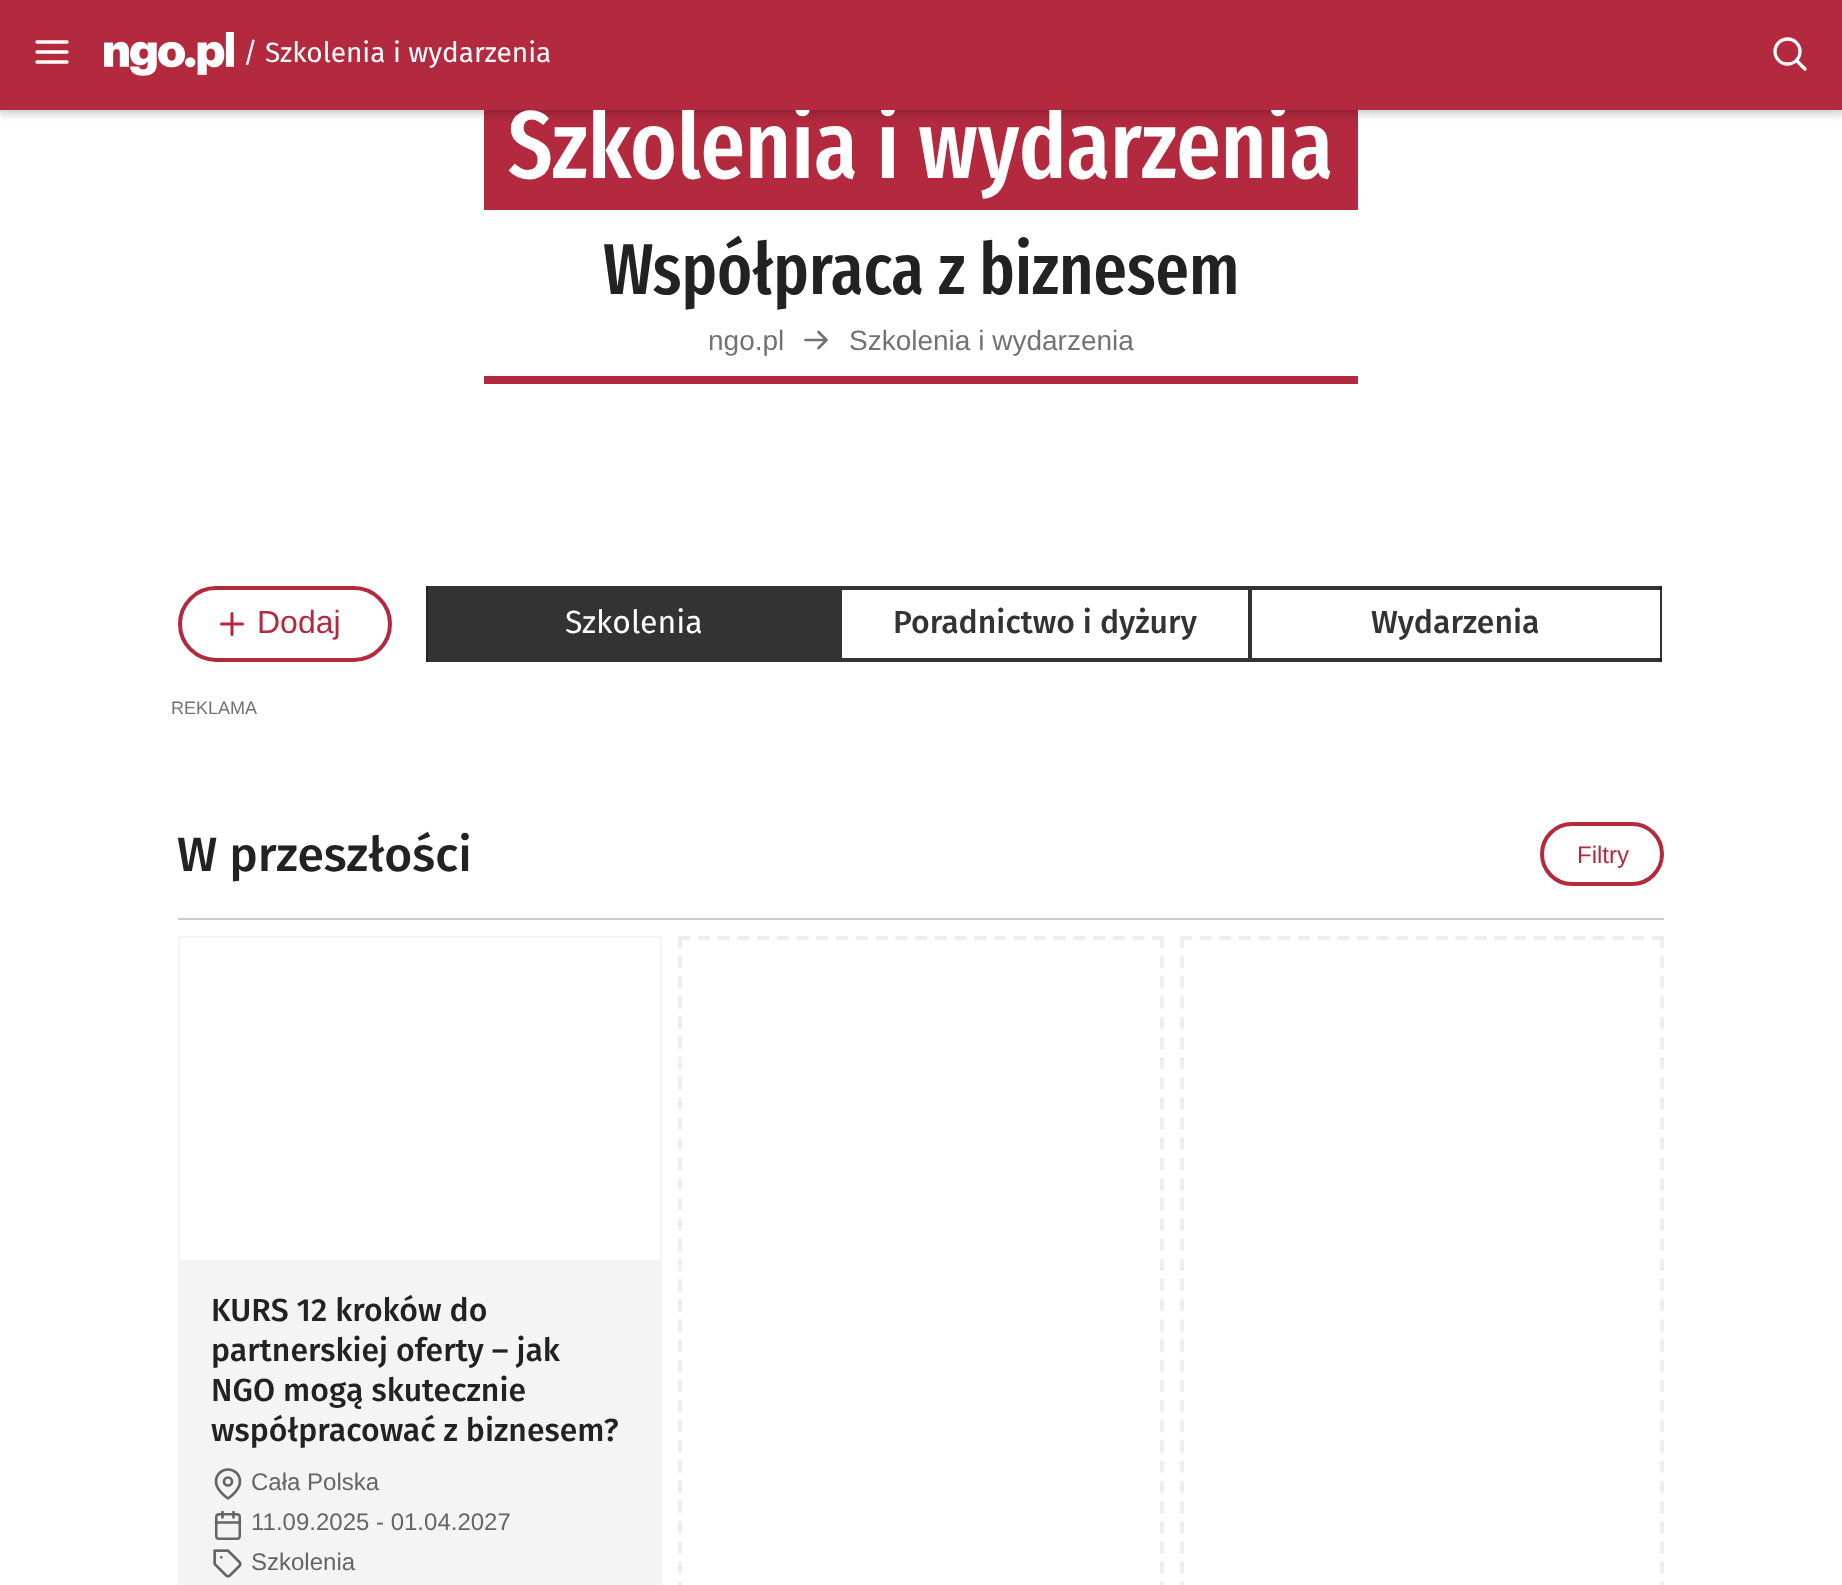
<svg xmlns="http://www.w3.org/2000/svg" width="1842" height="1585">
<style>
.a{font:500 96px Fira Sans Extra Condensed;fill:#fff}
.b{font:28px Fira Sans;fill:#fff}
.c{font:500 72px Fira Sans Extra Condensed;fill:#222}
.d{font:28px Liberation Sans;fill:#727272}
.e{font:32px Liberation Sans;fill:#b32a3e}
.f{font:32px Fira Sans;fill:#fff}
.g{font:500 32px Fira Sans;fill:#333}
.h{font:18px Liberation Sans;fill:#727272}
.i{font:500 48px Fira Sans;fill:#222}
.j{font:24px Liberation Sans;fill:#b32a3e}
.k{font:500 32px Fira Sans;fill:#222}
.l{font:24px Liberation Sans;fill:#656565}
</style>
<rect width="100%" height="100%" fill="#fff"/>
<path fill="#b32a3e" d="M484 110h874v100H484z"/>
<path fill="#00000033" filter="blur(4px)" d="M-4 -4h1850v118H-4z"/>
<path fill="none" stroke="#727272" stroke-width="2.7" stroke-linecap="round" stroke-linejoin="round" d="M805.5 340h21m-8-8l8 8l-8 8"/>
<path fill="#b32a3e" d="M484 376h874v8H484z"/>
<rect fill="none" stroke="#b32a3e" stroke-width="4" x="180" y="588" width="210" height="72" rx="36"/>
<path fill="none" stroke="#b32a3e" stroke-width="3" stroke-linecap="round" stroke-linejoin="round" d="M232 613.5v21m-10.5-10.5h21"/>
<path fill="#222" d="M1660 586h2v76H1660z"/>
<path fill="#222" d="M426 586h2v76H426z"/>
<path fill="#333" d="M428 586h1232v4H428z"/>
<path fill="#333" d="M428 658h1232v4H428z"/>
<path fill="#333" d="M428 590h414v68H428z"/>
<path fill="#333" d="M1248 590h4v68H1248z"/>
<path fill="#333" d="M1660 590h2v68H1660z"/>
<path fill="#ccc" d="M178 918h1486v2H178z"/>
<rect fill="none" stroke="#b32a3e" stroke-width="4" x="1542" y="824" width="120" height="60" rx="30"/>
<path fill="#f4f4f4" d="M178 936h484v649H178z"/>
<path fill="#fff" d="M180 938h480v322H180z"/>
<path fill="none" stroke="#656565" stroke-width="2.7" stroke-linecap="round" stroke-linejoin="round" d="M240 1481.5c0 9-12 17-12 17c0 0-12-8-12-17c0-7 5.5-12 12-12c6.5 0 12 5 12 12z"/>
<circle fill="none" stroke="#656565" stroke-width="2.7" cx="228" cy="1481.5" r="4"/>
<rect fill="none" stroke="#656565" stroke-width="2.5" x="216.25" y="1514.25" width="23.5" height="24.5" rx="2.75"/>
<path fill="none" stroke="#656565" stroke-width="2.7" stroke-linecap="round" stroke-linejoin="round" d="M233.5 1512v5.5m-11-5.5v5.5m-6.5 5h24"/>
<image href="2.png" x="213" y="1549" width="29" height="29"/>
<path fill="none" stroke="#eee" stroke-width="4" stroke-dasharray="12 7.76" d="M678 938h486"/>
<path fill="none" stroke="#eee" stroke-width="4" stroke-dasharray="12 8.18" d="M1162 936v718"/>
<path fill="none" stroke="#eee" stroke-width="4" stroke-dasharray="12 8.18" d="M680 936v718"/>
<path fill="none" stroke="#eee" stroke-width="4" stroke-dasharray="12 7.66" d="M1180 938h484"/>
<path fill="none" stroke="#eee" stroke-width="4" stroke-dasharray="12 8.18" d="M1662 936v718"/>
<path fill="none" stroke="#eee" stroke-width="4" stroke-dasharray="12 8.18" d="M1182 936v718"/>
<text class="a" x="508" y="178">Szkolenia i wydarzenia</text>
<path fill="#b32a3e" d="M0 0h1842v110H0z"/>
<circle fill="none" stroke="#fff" stroke-width="3.3" cx="1787.5" cy="51.5" r="12.5"/>
<path fill="none" stroke="#fff" stroke-width="3.3" stroke-linecap="round" stroke-linejoin="round" d="M1805 69l-8.5-8.5"/>
<image href="1.png" x="104" y="32" width="130" height="44"/>
<path fill="none" stroke="#fff" stroke-width="3.3" stroke-linecap="round" stroke-linejoin="round" d="M37 52h30m-30-10h30m-30 20h30"/>
<text class="b" x="243" y="62">/ Szkolenia i wydarzenia</text>
<text class="c" x="603" y="294">Współpraca z biznesem</text>
<text class="d" x="708" y="350">ngo.pl</text>
<text class="d" x="849" y="350">Szkolenia i wydarzenia</text>
<text class="e" x="257" y="633">Dodaj</text>
<text class="f" x="565" y="633">Szkolenia</text>
<text class="g" x="893" y="633">Poradnictwo i dyżury</text>
<text class="g" x="1371" y="633">Wydarzenia</text>
<text class="h" x="171" y="714">REKLAMA</text>
<text class="i" x="177" y="871">W przeszłości</text>
<text class="j" x="1577" y="863">Filtry</text>
<text class="k" x="211" y="1321">KURS 12 kroków do</text>
<text class="k" x="211" y="1361">partnerskiej oferty – jak</text>
<text class="k" x="211" y="1401">NGO mogą skutecznie</text>
<text class="k" x="211" y="1441">współpracować z biznesem?</text>
<text class="l" x="251" y="1490">Cała Polska</text>
<text class="l" x="251" y="1530">11.09.2025 - 01.04.2027</text>
<text class="l" x="251" y="1570">Szkolenia</text>
</svg>
